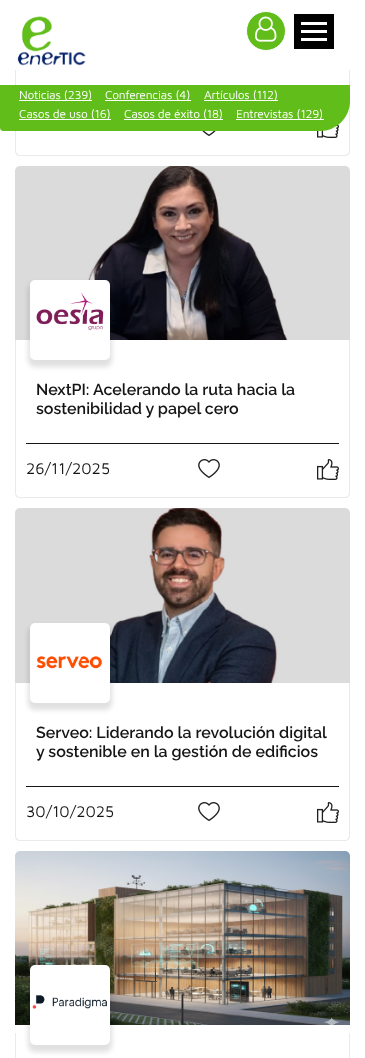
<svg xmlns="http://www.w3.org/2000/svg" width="365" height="1058">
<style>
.a{font:12px Maven Pro;letter-spacing:-0.25px;fill:#fff}
.b{font:600 16px Raleway;fill:#151515}
.c{font:16px Maven Pro;fill:#151515}
</style>
<rect width="100%" height="100%" fill="#fff"/>
<image href="1.png" x="17" y="16" width="69" height="50"/>
<circle fill="#62bd1b" stroke="#fff" cx="266" cy="31" r="19.5"/>
<image href="2.png" x="255" y="16" width="22" height="26"/>
<path fill="#000" d="M294 14h40v35H294z"/>
<path fill="#fff" d="M301 38h26v3H301z"/>
<path fill="#fff" d="M301 30h26v3H301z"/>
<path fill="#fff" d="M301 22h26v3H301z"/>
<path fill="#eaeaea" d="M349 70h1v16H349z"/>
<path fill="#eaeaea" d="M15 70h1v16H15z"/>
<path fill="#eaeaea" fill-rule="evenodd" d="M15 86h335v65c0 3-2 5-5 5h-325c-3 0-5-2-5-5zm1 0h333v65c0 2-2 4-4 4h-325c-2 0-4-2-4-4z"/>
<image href="4.png" x="317" y="124" width="22" height="14"/>
<path fill="#61be1a" d="M0 85h350v16c0 16.5-13.5 30-30 30h-317c-1.5 0-3-1.5-3-3z"/>
<path fill="#fff" d="M19 100h73v1H19z"/>
<path fill="#fff" d="M105 100h86v1H105z"/>
<path fill="#fff" d="M204 100h74v1H204z"/>
<path fill="#fff" d="M19 119h92v1H19z"/>
<path fill="#fff" d="M124 119h99v1H124z"/>
<path fill="#fff" d="M236 119h88v1H236z"/>
<image href="3.png" x="202" y="131" width="14" height="5"/>
<image href="5.png" x="15" y="166" width="335" height="174"/>
<rect fill="#0000001f" filter="blur(2.5px)" x="28" y="283" width="84" height="84" rx="7"/>
<rect fill="#fff" x="30" y="280" width="80" height="80" rx="5"/>
<image href="6.png" x="36" y="292" width="68" height="39"/>
<path fill="#eaeaea" fill-rule="evenodd" d="M15 428h335v65c0 3-2 5-5 5h-325c-3 0-5-2-5-5zm1 0h333v65c0 2-2 4-4 4h-325c-2 0-4-2-4-4z"/>
<path fill="#eaeaea" d="M15 340h1v88H15z"/>
<path fill="#eaeaea" d="M349 340h1v88H349z"/>
<path fill="#151515" d="M26 443h313v1H26z"/>
<image href="7.png" x="198" y="459" width="22" height="19"/>
<image href="8.png" x="317" y="459" width="22" height="21"/>
<image href="9.png" x="15" y="508" width="335" height="175"/>
<rect fill="#0000001f" filter="blur(2.5px)" x="28" y="626" width="84" height="84" rx="7"/>
<rect fill="#fff" x="30" y="623" width="80" height="80" rx="5"/>
<image href="10.png" x="36" y="656" width="66" height="13"/>
<path fill="#eaeaea" fill-rule="evenodd" d="M15 771h335v65c0 3-2 5-5 5h-325c-3 0-5-2-5-5zm1 0h333v65c0 2-2 4-4 4h-325c-2 0-4-2-4-4z"/>
<path fill="#eaeaea" d="M15 683h1v88H15z"/>
<path fill="#eaeaea" d="M349 683h1v88H349z"/>
<path fill="#151515" d="M26 786h313v1H26z"/>
<image href="7.png" x="198" y="802" width="22" height="19"/>
<image href="8.png" x="317" y="802" width="22" height="21"/>
<image href="11.png" x="15" y="851" width="335" height="174"/>
<rect fill="#0000001f" filter="blur(2.5px)" x="28" y="968" width="84" height="84" rx="7"/>
<rect fill="#fff" x="30" y="965" width="80" height="80" rx="5"/>
<image href="12.png" x="32" y="995" width="75" height="14"/>
<path fill="#eaeaea" d="M15 1033h1v25H15z"/>
<path fill="#eaeaea" d="M349 1033h1v25H349z"/>
<text class="a" x="19" y="99">Noticias (239)</text>
<text class="a" x="105" y="99">Conferencias (4)</text>
<text class="a" x="204" y="99">Artículos (112)</text>
<text class="a" x="19" y="118">Casos de uso (16)</text>
<text class="a" x="124" y="118">Casos de éxito (18)</text>
<text class="a" x="236" y="118">Entrevistas (129)</text>
<text class="b" x="36" y="395">NextPI: Acelerando la ruta hacia la</text>
<text class="b" x="36" y="414">sostenibilidad y papel cero</text>
<text class="c" x="26" y="474">26/11/2025</text>
<text class="b" x="36" y="738">Serveo: Liderando la revolución digital</text>
<text class="b" x="36" y="757">y sostenible en la gestión de edificios</text>
<text class="c" x="26" y="817">30/10/2025</text>
</svg>
